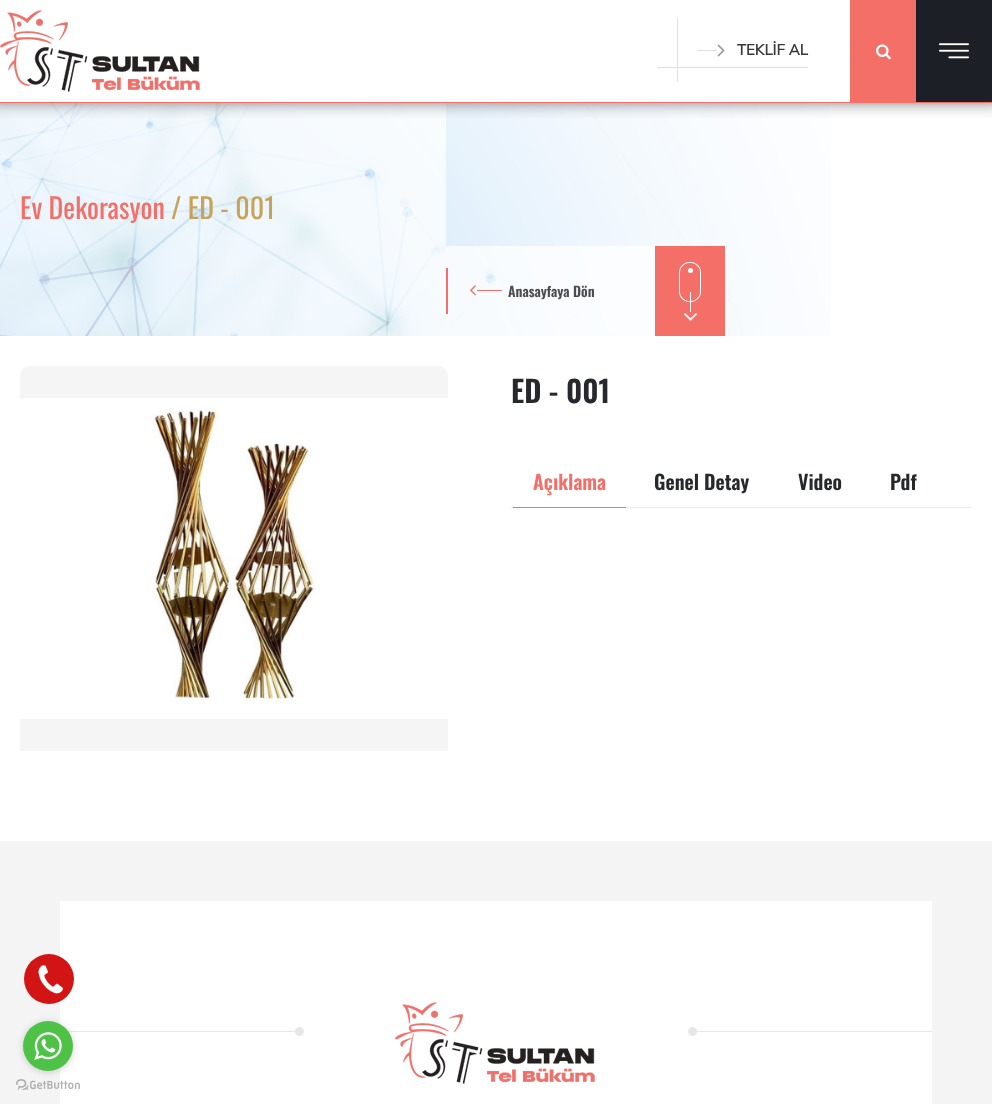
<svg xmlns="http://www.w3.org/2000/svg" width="992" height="1104">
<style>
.a{font:bold 15px Muli;fill:#383838}
.b{font:28px Oswald;fill:#f36f68}
.c{font:28px Oswald;fill:#c7a35a}
.d{font:600 14px Oswald;fill:#4c4c4c}
.e{font:600 30px Oswald;fill:#27282c}
.f{font:600 20px Oswald;fill:#f36f68}
.g{font:600 20px Oswald;fill:#27282c}
</style>
<defs>
<clipPath id="clip1"><path d="M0 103h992v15H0z"/></clipPath>
</defs>
<rect width="100%" height="100%" fill="#fff"/>
<image href="5.png" x="0" y="103" width="831" height="233"/>
<path fill="#ffffffbf" d="M0 103h446v233H0z"/>
<g clip-path="url(#clip1)">
<path fill="#3e3e3e" filter="blur(9.5px)" d="M-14 -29h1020v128H-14z"/>
</g>
<path fill="#f36f68" d="M0 102h992v1H0z"/>
<image href="1.png" x="0" y="10" width="200" height="82"/>
<path fill="#e0e0e0" d="M657 67h151v1H657z"/>
<path fill="#e0e0e0" d="M677 18h1v64H677z"/>
<path fill="#e0e0e0" d="M697 50h20v1H697z"/>
<image href="2.png" x="717" y="44" width="8" height="13"/>
<path fill="#f36f68" d="M850 0h66v102H850z"/>
<image href="3.png" x="876" y="44" width="15" height="16"/>
<path fill="#1c1f26" d="M916 0h76v102H916z"/>
<image href="4.png" x="939" y="43" width="30" height="16"/>
<path fill="#ffffffbf" d="M446 246h209v90H446z"/>
<path fill="#f36f68" d="M446 268h2v46H446z"/>
<image href="6.png" x="470" y="285" width="6" height="11"/>
<path fill="#f36f68" d="M477 290h25v1H477z"/>
<path fill="#f36f68" d="M655 246h70v90H655z"/>
<image href="7.png" x="679" y="262" width="22" height="59"/>
<circle fill="#fff" cx="690.5" cy="270.5" r="2.5"/>
<path fill="#f5f5f5" d="M30 366h408c5.5 0 10 4.5 10 10v375h-428v-375c0-5.5 4.5-10 10-10z"/>
<image href="8.png" x="20" y="398" width="428" height="321"/>
<path fill="#ededed" d="M511 507h461v1H511z"/>
<path fill="#f36f68" d="M513 507h113v1H513z"/>
<path fill="#f4f4f4" d="M60 841h872v60H60z"/>
<path fill="#f4f4f4" d="M932 841h60v263H932z"/>
<path fill="#f4f4f4" d="M0 841h60v263H0z"/>
<path fill="#e7e7e7" d="M60 1031h872v1H60z"/>
<path fill="#fff" d="M295 1031h402v1H295z"/>
<circle fill="#e7e7e7" cx="299.5" cy="1031.5" r="4.5"/>
<image href="1.png" x="395" y="1002" width="200" height="82"/>
<circle fill="#e7e7e7" cx="692.5" cy="1031.5" r="4.5"/>
<circle fill="#d21414" cx="49" cy="979" r="25"/>
<image href="9.png" x="38" y="965" width="25" height="29"/>
<image href="11.png" x="16" y="1079" width="64" height="11"/>
<rect fill="#88888866" filter="blur(3.5px)" x="23" y="1022" width="50" height="50" rx="25"/>
<circle fill="#4dc247" cx="48" cy="1046" r="25"/>
<image href="10.png" x="34" y="1032" width="28" height="28"/>
<text class="a" x="737" y="55">TEKLİF AL</text>
<text class="b" x="20" y="219">Ev Dekorasyon</text>
<text class="c" x="171" y="219">/ ED - 001</text>
<text class="d" x="508" y="297">Anasayfaya Dön</text>
<text class="e" x="511" y="403">ED - 001</text>
<text class="f" x="533" y="490">Açıklama</text>
<text class="g" x="654" y="490">Genel Detay</text>
<text class="g" x="798" y="490">Video</text>
<text class="g" x="890" y="490">Pdf</text>
</svg>
